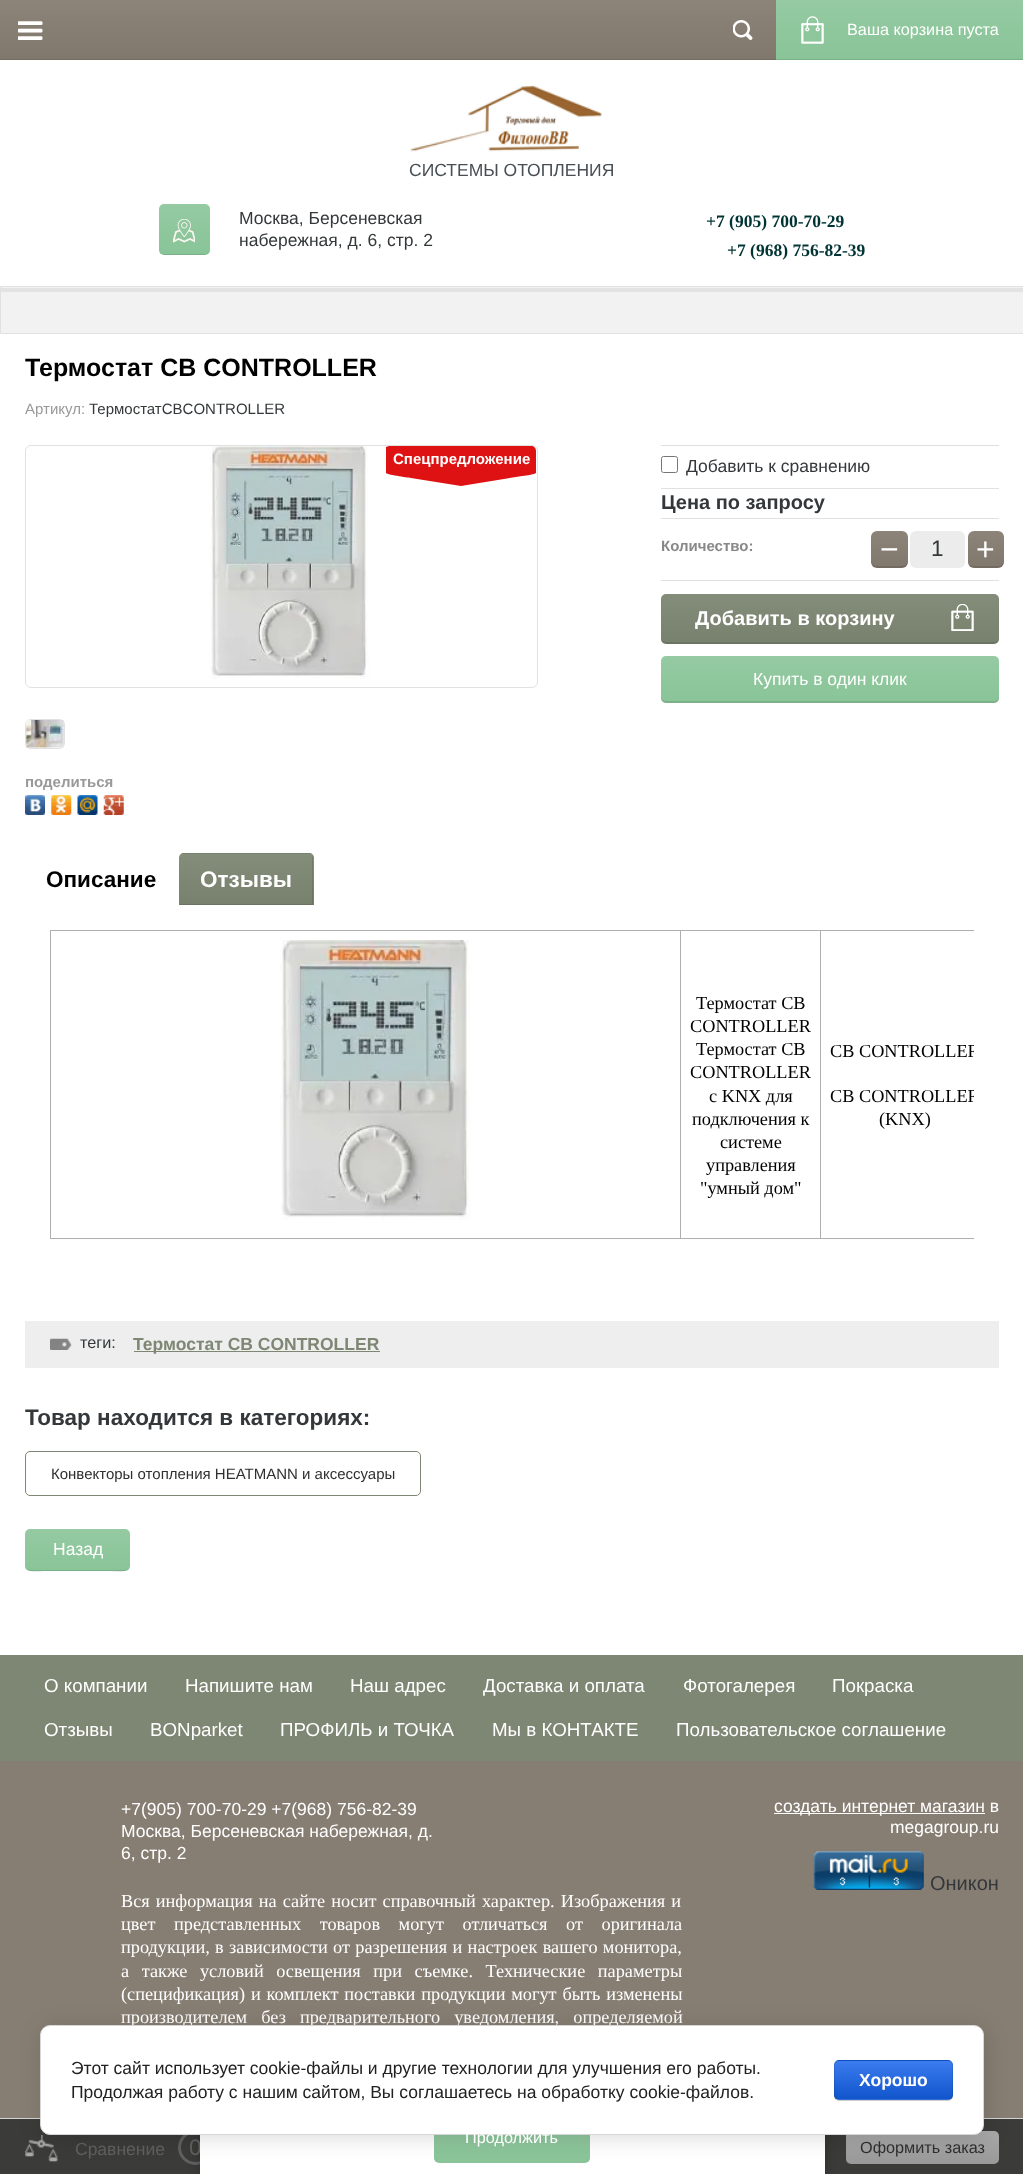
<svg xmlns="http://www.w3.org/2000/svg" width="1023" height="2174">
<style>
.a{font:16.25px Liberation Sans;fill:#fff}
.b{font:17.5px Liberation Sans;fill:#474f54}
.c{font:17.5px Liberation Sans;fill:#34383a}
.d{font:bold 17.5px Liberation Serif;fill:#033}
.e{font:bold 25px Liberation Sans;fill:#000}
.f{font:15px Liberation Sans;fill:#999}
.g{font:15px Liberation Sans;fill:#34383a}
.h{font:bold 15px Liberation Sans;fill:#fff}
.i{font:bold 15px Liberation Sans;fill:#999}
.j{font:bold 20px Liberation Sans;fill:#34383a}
.k{font:bold 15px Liberation Sans;fill:#888}
.l{font:32px Liberation Sans;fill:#fff}
.m{font:22.5px Liberation Sans;fill:#34383a}
.n{font:bold 20px Liberation Sans;fill:#fff}
.o{font:17.5px Liberation Sans;fill:#fff}
.p{font:bold 22.5px Liberation Sans;fill:#000}
.q{font:bold 22.5px Liberation Sans;fill:#fff}
.r{font:18.3px Liberation Serif;fill:#000}
.s{font:16.25px Liberation Sans;fill:#34383a}
.t{font:bold 17.5px Liberation Sans;fill:#7d8773}
.u{font:bold 22.5px Liberation Sans;fill:#34383a}
.v{font:15px Liberation Sans;fill:#303030}
.w{font:17.5px Liberation Sans;fill:#606060}
.x{font:22.5px Liberation Sans;fill:#606060}
.y{font:16.25px Liberation Sans;fill:#303030}
.z{font:18.75px Liberation Sans;fill:#fff}
.a1{font:18.3px Liberation Serif;fill:#fff}
.b1{font:20px Liberation Sans;fill:#34383a}
.c1{font:bold 17.5px Liberation Sans;fill:#fff}
.d1{font:17.5px Liberation Sans;fill:#212121}
</style>
<defs>
<linearGradient id="g1" gradientUnits="userSpaceOnUse" x1="512" y1="60" x2="512" y2="0"><stop offset="0" stop-color="#81786d"/><stop offset="1" stop-color="#8d8479"/></linearGradient>
<linearGradient id="g2" gradientUnits="userSpaceOnUse" x1="900" y1="60" x2="900" y2="0"><stop offset="0" stop-color="#89c498"/><stop offset="1" stop-color="#95caa2"/></linearGradient>
<linearGradient id="g3" gradientUnits="userSpaceOnUse" x1="184" y1="255" x2="184" y2="204"><stop offset="0" stop-color="#89c498"/><stop offset="1" stop-color="#95caa2"/></linearGradient>
<linearGradient id="g4" gradientUnits="userSpaceOnUse" x1="889" y1="568" x2="889" y2="531"><stop offset="0" stop-color="#81786d"/><stop offset="1" stop-color="#8d8479"/></linearGradient>
<linearGradient id="g5" gradientUnits="userSpaceOnUse" x1="986" y1="568" x2="986" y2="531"><stop offset="0" stop-color="#81786d"/><stop offset="1" stop-color="#8d8479"/></linearGradient>
<linearGradient id="g6" gradientUnits="userSpaceOnUse" x1="830" y1="644" x2="830" y2="594"><stop offset="0" stop-color="#77816d"/><stop offset="1" stop-color="#838d79"/></linearGradient>
<linearGradient id="g7" gradientUnits="userSpaceOnUse" x1="830" y1="703" x2="830" y2="656"><stop offset="0" stop-color="#89c498"/><stop offset="1" stop-color="#95caa2"/></linearGradient>
<clipPath id="clip1"><path d="M184 853h125c3 0 5 2 5 5v47h-135v-47c0-3 2-5 5-5z"/></clipPath>
<linearGradient id="g8" gradientUnits="userSpaceOnUse" x1="246" y1="854" x2="246" y2="803"><stop offset="0" stop-color="#77816d"/><stop offset="1" stop-color="#838d79"/></linearGradient>
<linearGradient id="g9" gradientUnits="userSpaceOnUse" x1="246" y1="905" x2="246" y2="854"><stop offset="0" stop-color="#77816d"/><stop offset="1" stop-color="#838d79"/></linearGradient>
<linearGradient id="g10" gradientUnits="userSpaceOnUse" x1="78" y1="1571" x2="78" y2="1529"><stop offset="0" stop-color="#89c498"/><stop offset="1" stop-color="#95caa2"/></linearGradient>
<linearGradient id="g11" gradientUnits="userSpaceOnUse" x1="923" y1="2131" x2="923" y2="2164"><stop offset="0" stop-color="#aaa"/><stop offset="1" stop-color="#999"/></linearGradient>
<clipPath id="clip2"><path d="M50 930h924v309H50z"/></clipPath>
<linearGradient id="g12" gradientUnits="userSpaceOnUse" x1="512" y1="2163" x2="512" y2="2113"><stop offset="0" stop-color="#89c498"/><stop offset="1" stop-color="#95caa2"/></linearGradient>
<clipPath id="clip3"><rect x="834" y="2060" width="119" height="40" rx="5"/></clipPath>
<linearGradient id="g13" gradientUnits="userSpaceOnUse" x1="893" y1="2099" x2="893" y2="2136"><stop offset="0" stop-color="#3b7cef"/><stop offset="1" stop-color="#15c"/></linearGradient>
<linearGradient id="g14" gradientUnits="userSpaceOnUse" x1="893" y1="2061" x2="893" y2="2099"><stop offset="0" stop-color="#3b7cef"/><stop offset="1" stop-color="#15c"/></linearGradient>
<linearGradient id="g15" gradientUnits="userSpaceOnUse" x1="893" y1="2024" x2="893" y2="2061"><stop offset="0" stop-color="#3b7cef"/><stop offset="1" stop-color="#15c"/></linearGradient>
</defs>
<rect width="100%" height="100%" fill="#fff"/>
<path fill="url(#g1)" d="M0 0h776v59H0z"/>
<image href="1.png" x="18" y="21" width="25" height="19"/>
<path fill="#746c62" d="M0 59h776v1H0z"/>
<image href="2.png" x="733" y="20" width="20" height="20"/>
<path fill="url(#g2)" d="M776 0h247v59H776z"/>
<path fill="#7bb089" d="M776 59h247v1H776z"/>
<image href="3.png" x="801" y="16" width="23" height="28"/>
<image href="4.png" x="410" y="85" width="193" height="67"/>
<rect fill="url(#g3)" x="159" y="204" width="51" height="51" rx="5"/>
<path fill="#0000001a" d="M159 249c0 7 6 6 12 6h27c6 0 12 1 12-6c0 3-2 5-5 5h-41c-3 0-5-2-5-5z"/>
<image href="5.png" x="173" y="219" width="22" height="24"/>
<path fill="#f2f2f2" d="M1 287h1022v46H1z"/>
<path fill="#e3e3e3" d="M1 288h1022v4H1z"/>
<path fill="none" stroke="#e1e1e1" d="M0.5 286.5h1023v47H0.5z"/>
<rect fill="none" stroke="#e1e1e1" x="25.5" y="445.5" width="512" height="242" rx="5.5"/>
<image href="6.png" x="210" y="446" width="159" height="233"/>
<path fill="#de1212" d="M536 473v-22c0-3-2-5-5-5h-142l-3 1v26c2 2 25 5 25 5l50 8l61-10c1 0 11-1 14-3z"/>
<rect fill="none" stroke="#e1e1e1" x="25.5" y="719.5" width="39" height="29" rx="5.5"/>
<image href="7.png" x="26" y="720" width="38" height="28"/>
<image href="8.png" x="25" y="795" width="20" height="20"/>
<image href="9.png" x="51" y="795" width="21" height="20"/>
<image href="10.png" x="77" y="795" width="21" height="20"/>
<image href="11.png" x="103" y="795" width="21" height="20"/>
<path fill="#dedede" d="M661 445h338v1H661z"/>
<rect fill="none" stroke="#767676" x="661.5" y="456.5" width="16" height="16" rx="2"/>
<path fill="#e1e1e1" d="M661 488h338v1H661z"/>
<path fill="#e1e1e1" d="M661 518h338v1H661z"/>
<path fill="#e1e1e1" d="M661 580h338v1H661z"/>
<rect fill="url(#g4)" x="871" y="531" width="37" height="37" rx="6"/>
<path fill="#0000001a" d="M871 560c0 7.5 3.5 8 10 8h17c6.5 0 10-.5 10-8c0 3-3 6-7 6h-23c-4 0-7-3-7-6z"/>
<rect fill="#ececec" x="910" y="531" width="55" height="37" rx="6"/>
<rect fill="url(#g5)" x="968" y="531" width="36" height="37" rx="6"/>
<path fill="#0000001a" d="M968 560c0 7.5 3 8 10 8h16c7 0 10-.5 10-8c0 3-3 6-6 6h-24c-4 0-6-3-6-6z"/>
<rect fill="url(#g6)" x="661" y="594" width="338" height="50" rx="5"/>
<path fill="#0000001a" d="M661 638c0 3 2 6 5 6h328c3 0 5-3 5-6c0 2-2 4-5 4h-328c-3 0-5-2-5-4z"/>
<image href="12.png" x="951" y="604" width="23" height="27"/>
<rect fill="url(#g7)" x="661" y="656" width="338" height="47" rx="5"/>
<path fill="#0000001a" d="M661 696v2c0 3 2 5 5 5h328c3 0 5-2 5-5v-2c0 3-2 5-5 5h-328c-3 0-5-2-5-5z"/>
<g clip-path="url(#clip1)">
<path fill="url(#g8)" d="M179 853h135v1H179z"/>
<path fill="url(#g9)" d="M179 854h135v51H179z"/>
</g>
<path fill="#0000001a" d="M180 904v1h133v-47c0-1 0-2-1-3v49z"/>
<path fill="#afafaf" d="M50 930h924v1H50z"/>
<path fill="#afafaf" d="M50 1238h924v1H50z"/>
<path fill="#afafaf" d="M50 930h1v309H50z"/>
<image href="13.png" x="280" y="940" width="191" height="280"/>
<path fill="#afafaf" d="M680 930h1v309H680z"/>
<path fill="#afafaf" d="M820 930h1v309H820z"/>
<path fill="#eee" d="M25 1321h974v47H25z"/>
<image href="14.png" x="50" y="1338" width="22" height="12"/>
<path fill="#7d8773" d="M134 1351h246v1H134z"/>
<rect fill="none" stroke="#7d8773" x="25.5" y="1451.5" width="395" height="44" rx="4.5"/>
<rect fill="url(#g10)" x="25" y="1529" width="105" height="42" rx="5"/>
<path fill="#0000001a" d="M25 1565c0 10 16 6 21 6h63c5 0 21 4 21-6c0 3-2 5-5 5h-95c-3 0-5-2-5-5z"/>
<path fill="#d4d4d4" d="M0 2118h1023v1H0z"/>
<path fill="#3b3b39" d="M0 2119h1023v55H0z"/>
<image href="15.png" x="25" y="2135" width="33" height="27"/>
<circle fill="none" stroke="#606060" stroke-width="3" cx="195.5" cy="2147.5" r="16"/>
<rect fill="url(#g11)" x="846" y="2131" width="153" height="33" rx="5"/>
<path fill="#877e73" d="M0 1761h1023v357H0z"/>
<path fill="#7d8773" d="M0 1655h1023v106H0z"/>
<path fill="#fff" d="M774 1813h211v1H774z"/>
<image href="16.png" x="813" y="1851" width="111" height="39"/>
<path fill="#0000003b" filter="blur(6px)" d="M200 2038h625v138H200z"/>
<text class="a" x="847" y="35">Ваша корзина пуста</text>
<text class="b" x="409" y="176">СИСТЕМЫ ОТОПЛЕНИЯ</text>
<text class="c" x="239" y="224">Москва, Берсеневская</text>
<text class="c" x="239" y="246">набережная, д. 6, стр. 2</text>
<text class="d" x="706" y="227">+7 (905) 700-70-29</text>
<text class="d" x="727" y="256">+7 (968) 756-82-39</text>
<text class="e" x="25" y="376">Термостат CB CONTROLLER</text>
<text class="f" x="25" y="414">Артикул:</text>
<text class="g" x="89" y="414">ТермостатCBCONTROLLER</text>
<text class="h" x="393" y="464">Спецпредложение</text>
<text class="i" x="25" y="787">поделиться</text>
<text class="c" x="686" y="472">Добавить к сравнению</text>
<text class="j" x="661" y="509">Цена по запросу</text>
<text class="k" x="661" y="551">Количество:</text>
<text class="l" x="880" y="560">−</text>
<text class="m" x="931" y="556">1</text>
<text class="l" x="976" y="560">+</text>
<text class="n" x="695" y="625">Добавить в корзину</text>
<text class="o" x="753" y="685">Купить в один клик</text>
<text class="p" x="46" y="887">Описание</text>
<text class="q" x="200" y="887">Отзывы</text>
<text class="r" x="696" y="1009">Термостат CB</text>
<text class="r" x="690" y="1032">CONTROLLER</text>
<text class="r" x="696" y="1055">Термостат СВ</text>
<text class="r" x="690" y="1078">CONTROLLER</text>
<text class="r" x="709" y="1102">с KNX для</text>
<text class="r" x="692" y="1125">подключения к</text>
<text class="r" x="720" y="1148">системе</text>
<text class="r" x="706" y="1171">управления</text>
<text class="r" x="700" y="1194">"умный дом"</text>
<g clip-path="url(#clip2)">
<text class="r" x="830" y="1057">СВ CONTROLLER</text>
<text class="r" x="830" y="1102">СВ CONTROLLER</text>
</g>
<text class="r" x="879" y="1125">(KNX)</text>
<text class="s" x="80" y="1348">теги:</text>
<text class="t" x="133" y="1350">Термостат CB CONTROLLER</text>
<text class="u" x="25" y="1425">Товар находится в категориях:</text>
<text class="v" x="51" y="1479">Конвекторы отопления HEATMANN и аксессуары</text>
<text class="o" x="53" y="1555">Назад</text>
<text class="w" x="75" y="2155">Сравнение</text>
<text class="x" x="189" y="2155">0</text>
<text class="y" x="860" y="2153">Оформить заказ</text>
<text class="z" x="44" y="1692">О компании</text>
<text class="z" x="185" y="1692">Напишите нам</text>
<text class="z" x="350" y="1692">Наш адрес</text>
<text class="z" x="483" y="1692">Доставка и оплата</text>
<text class="z" x="683" y="1692">Фотогалерея</text>
<text class="z" x="832" y="1692">Покраска</text>
<text class="z" x="44" y="1736">Отзывы</text>
<text class="z" x="150" y="1736">BONparket</text>
<text class="z" x="280" y="1736">ПРОФИЛЬ и ТОЧКА</text>
<text class="z" x="492" y="1736">Мы в КОНТАКТЕ</text>
<text class="z" x="676" y="1736">Пользовательское соглашение</text>
<text class="o" x="121" y="1815">+7(905) 700-70-29 +7(968) 756-82-39</text>
<text class="o" x="121" y="1837">Москва, Берсеневская набережная, д.</text>
<text class="o" x="121" y="1859">6, стр. 2</text>
<text class="a1" x="121" y="1907" word-spacing="1.5">Вся информация на сайте носит справочный характер. Изображения и</text>
<text class="a1" x="121" y="1930" word-spacing="14">цвет представленных товаров могут отличаться от оригинала</text>
<text class="a1" x="121" y="1953" word-spacing="0.75">продукции, в зависимости от разрешения и настроек вашего монитора,</text>
<text class="a1" x="121" y="1977" word-spacing="8">а также условий освещения при съемке. Технические параметры</text>
<text class="a1" x="121" y="2000" word-spacing="1.25">(спецификация) и комплект поставки продукции могут быть изменены</text>
<text class="a1" x="121" y="2023" word-spacing="9.5">производителем без предварительного уведомления, определяемой</text>
<text class="o" x="774" y="1812">создать интернет магазин в</text>
<text class="o" x="890" y="1833">megagroup.ru</text>
<text class="b1" x="930" y="1890">Оникон</text>
<path fill="#fff" d="M200 2135h625v39H200z"/>
<rect fill="url(#g12)" x="434" y="2113" width="156" height="50" rx="5"/>
<rect fill="#00000024" filter="blur(11px)" x="43" y="2028" width="943" height="110" rx="10"/>
<rect fill="#fff" stroke="#d6d6d6" x="40.5" y="2025.5" width="943" height="109" rx="9.5"/>
<rect fill="#00000033" filter="blur(0.5px)" x="834" y="2061" width="119" height="40" rx="5"/>
<g clip-path="url(#clip3)">
<path fill="url(#g13)" d="M834 2099h119v1H834z"/>
<path fill="url(#g14)" d="M834 2061h119v38H834z"/>
<path fill="url(#g15)" d="M834 2060h119v1H834z"/>
</g>
<rect fill="none" stroke="#0000001a" x="834.5" y="2060.5" width="118" height="39" rx="4.5"/>
<text class="c1" x="859" y="2086">Хорошо</text>
<text class="d1" x="71" y="2098">Продолжая работу с нашим сайтом, Вы соглашаетесь на обработку cookie-файлов.</text>
<text class="d1" x="71" y="2074">Этот сайт использует cookie-файлы и другие технологии для улучшения его работы.</text>
<text class="a" x="465" y="2143">Продолжить</text>
</svg>
